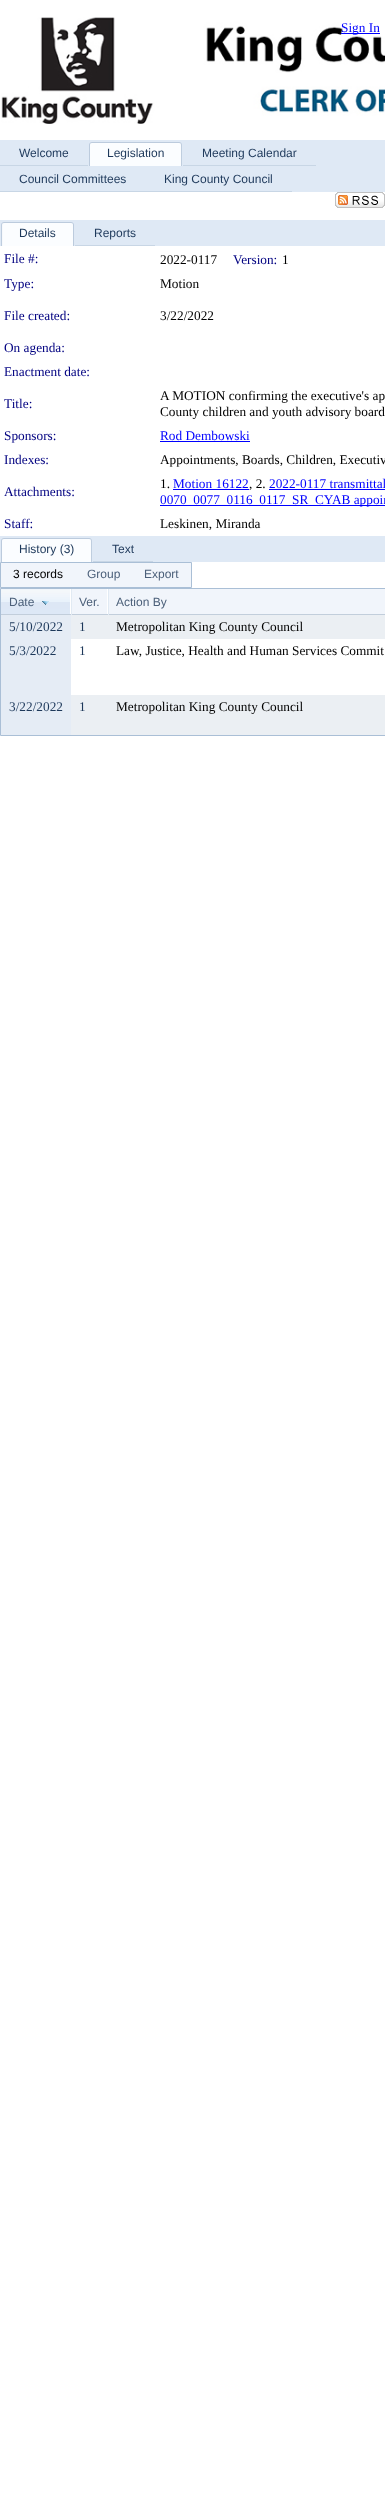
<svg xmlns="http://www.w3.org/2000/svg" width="385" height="2518">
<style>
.a{font:13.3px Liberation Serif;fill:#00f}
.b{font:12px Liberation Sans;fill:#1e395b}
.c{font:13.3px Liberation Serif;fill:#000080}
.d{font:13.3px Liberation Serif;fill:#000}
.e{font:12px Liberation Sans;fill:#000}
.f{font:12px Liberation Sans;fill:#4c607a}
.g{font:13.3px Liberation Serif;fill:#1e395b}
</style>
<rect width="100%" height="100%" fill="#fff"/>
<image href="1.png" x="1" y="17" width="384" height="107"/>
<path fill="#00f" d="M341 33h39v1H341z"/>
<path fill="#dfe9f5" d="M0 140h385v52H0z"/>
<path fill="#c8d6e5" d="M0 165h88v1H0z"/>
<image href="2.png" x="89" y="142" width="8" height="24"/>
<image href="3.png" x="97" y="142" width="85" height="24"/>
<path fill="#c8d6e5" d="M183 165h133v1H183z"/>
<path fill="#c8d6e5" d="M0 191h292v1H0z"/>
<image href="4.png" x="335" y="192" width="50" height="16"/>
<path fill="#dfe9f5" d="M0 220h385v26H0z"/>
<image href="5.png" x="1" y="222" width="8" height="24"/>
<image href="6.png" x="9" y="222" width="65" height="24"/>
<path fill="#c8d6e5" d="M75 245h80v1H75z"/>
<path fill="#00f" d="M160 441h90v1H160z"/>
<path fill="#00f" d="M173 489h76v1H173z"/>
<path fill="#00f" d="M269 489h116v1H269z"/>
<path fill="#00f" d="M160 505h225v1H160z"/>
<path fill="#dfe9f5" d="M0 536h385v26H0z"/>
<image href="2.png" x="1" y="538" width="8" height="24"/>
<image href="7.png" x="9" y="538" width="83" height="24"/>
<path fill="#c8d6e5" d="M93 561h60v1H93z"/>
<path fill="#f1f5fb" stroke="#aabfd6" d="M0.5 562.5h191v25H0.5z"/>
<path fill="none" stroke="#aabfd6" d="M0.5 588.5h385v147H0.5z"/>
<path fill="#dde8f7" d="M1 613h69v1H1z"/>
<image href="8.png" x="1" y="589" width="69" height="24"/>
<path fill="#c2cedb" d="M1 614h384v1H1z"/>
<image href="9.png" x="42" y="601" width="7" height="4"/>
<path fill="#f1f5fb" d="M72 589h35v25H72z"/>
<path fill="#e1eaf3" d="M71 589h1v26H71z"/>
<path fill="#f1f5fb" d="M109 589h276v25H109z"/>
<path fill="#e1eaf3" d="M108 589h1v26H108z"/>
<path fill="#ebeff3" d="M71 615h314v24H71z"/>
<path fill="#e5ecf5" d="M1 615h69v23H1z"/>
<path fill="#e5ecf5" d="M70 615h1v120H70z"/>
<path fill="#e5ecf5" d="M1 638h70v1H1z"/>
<path fill="#e5ecf5" d="M1 639h69v55H1z"/>
<path fill="#e5ecf5" d="M1 694h70v1H1z"/>
<path fill="#ebeff3" d="M71 695h314v40H71z"/>
<path fill="#e5ecf5" d="M1 695h69v39H1z"/>
<path fill="#e5ecf5" d="M1 734h70v1H1z"/>
<text class="a" x="341" y="32">Sign In</text>
<text class="b" x="19" y="157">Welcome</text>
<text class="b" x="107" y="157">Legislation</text>
<text class="b" x="202" y="157">Meeting Calendar</text>
<text class="b" x="19" y="183">Council Committees</text>
<text class="b" x="164" y="183">King County Council</text>
<text class="b" x="19" y="237">Details</text>
<text class="b" x="94" y="237">Reports</text>
<text class="c" x="4" y="263">File #:</text>
<text class="d" x="160" y="264">2022-0117</text>
<text class="c" x="233" y="264">Version:</text>
<text class="d" x="282" y="264">1</text>
<text class="c" x="4" y="288">Type:</text>
<text class="d" x="160" y="288">Motion</text>
<text class="c" x="4" y="320">File created:</text>
<text class="d" x="160" y="320">3/22/2022</text>
<text class="c" x="4" y="352">On agenda:</text>
<text class="c" x="4" y="376">Enactment date:</text>
<text class="c" x="4" y="408">Title:</text>
<text class="d" x="160" y="400">A MOTION confirming the executive's ap</text>
<text class="d" x="160" y="416">County children and youth advisory board</text>
<text class="c" x="4" y="440">Sponsors:</text>
<text class="a" x="160" y="440">Rod Dembowski</text>
<text class="c" x="4" y="464">Indexes:</text>
<text class="d" x="160" y="464">Appointments, Boards, Children, Executiv</text>
<text class="c" x="4" y="496">Attachments:</text>
<text class="d" x="160" y="488">1.</text>
<text class="a" x="173" y="488">Motion 16122</text>
<text class="d" x="249" y="488">, 2.</text>
<text class="a" x="269" y="488">2022-0117 transmittal</text>
<text class="a" x="160" y="504">0070_0077_0116_0117_SR_CYAB appoin</text>
<text class="c" x="4" y="528">Staff:</text>
<text class="d" x="160" y="528">Leskinen, Miranda</text>
<text class="b" x="19" y="553">History (3)</text>
<text class="b" x="112" y="553">Text</text>
<text class="e" x="13" y="578">3 records</text>
<text class="f" x="87" y="578">Group</text>
<text class="f" x="144" y="578">Export</text>
<text class="f" x="9" y="606">Date</text>
<text class="f" x="79" y="606">Ver.</text>
<text class="f" x="116" y="606">Action By</text>
<text class="g" x="9" y="631">5/10/2022</text>
<text class="g" x="79" y="631">1</text>
<text class="d" x="116" y="631">Metropolitan King County Council</text>
<text class="g" x="9" y="655">5/3/2022</text>
<text class="g" x="79" y="655">1</text>
<text class="d" x="116" y="655">Law, Justice, Health and Human Services Commit</text>
<text class="g" x="9" y="711">3/22/2022</text>
<text class="g" x="79" y="711">1</text>
<text class="d" x="116" y="711">Metropolitan King County Council</text>
</svg>
